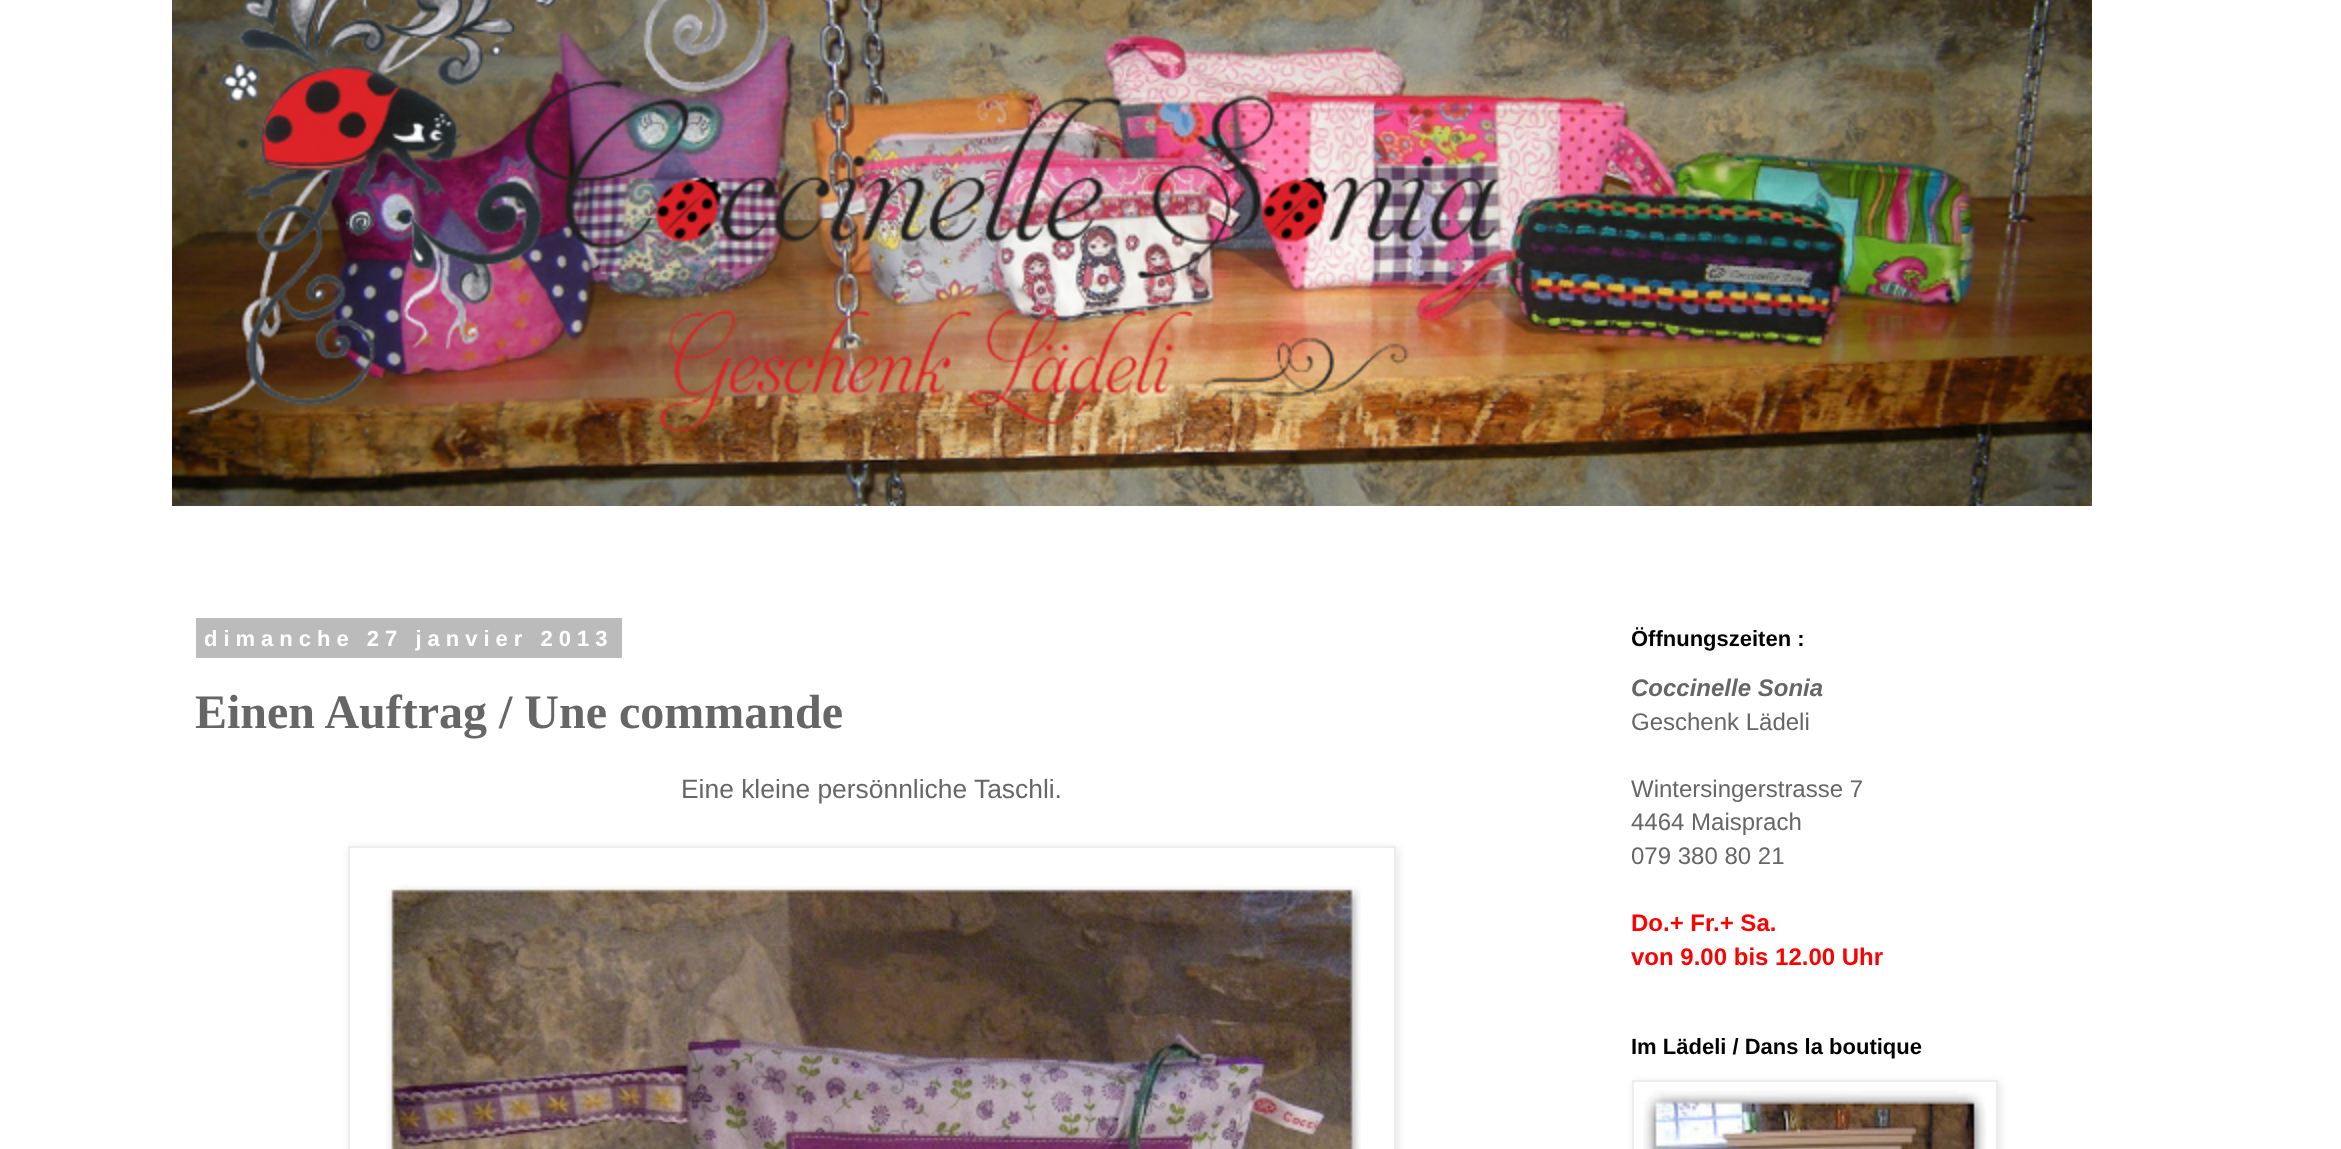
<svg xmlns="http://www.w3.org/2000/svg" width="2341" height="1149">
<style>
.a{font:bold 22px Liberation Sans;letter-spacing:6px;fill:#fff}
.b{font:bold 48px Liberation Serif;fill:#666}
.c{font:26.4px Liberation Sans;fill:#666}
.d{font:bold 22px Liberation Sans;fill:#000}
.e{font:italic bold 24px Liberation Sans;fill:#666}
.f{font:24px Liberation Sans;fill:#666}
.g{font:bold 24px Liberation Sans;fill:#f00}
</style>
<defs>
<clipPath id="clip1"><path d="M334 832h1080v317h-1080zm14 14h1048v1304h-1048z" clip-rule="evenodd"/></clipPath>
<clipPath id="clip2"><path d="M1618 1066h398v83h-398zm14 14h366v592h-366z" clip-rule="evenodd"/></clipPath>
</defs>
<rect width="100%" height="100%" fill="#fff"/>
<image href="1.png" x="172" y="0" width="1920" height="506"/>
<path fill="#bbb" d="M196 618h426v40H196z"/>
<g clip-path="url(#clip1)">
<path fill="#0000001a" filter="blur(5px)" d="M350 848h1048v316H350z"/>
</g>
<path fill="none" stroke="#eee" stroke-width="2" d="M349 847h1046v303H349z"/>
<image href="2.png" x="386" y="885" width="975" height="264"/>
<g clip-path="url(#clip2)">
<path fill="#0000001a" filter="blur(5px)" d="M1634 1082h366v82H1634z"/>
</g>
<path fill="none" stroke="#eee" stroke-width="2" d="M1633 1081h364v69H1633z"/>
<image href="3.png" x="1643" y="1090" width="344" height="59"/>
<text class="a" x="204" y="646">dimanche 27 janvier 2013</text>
<text class="b" x="195" y="728">Einen Auftrag / Une commande</text>
<text class="c" x="681" y="798">Eine kleine persönnliche Taschli.</text>
<text class="d" x="1631" y="646">Öffnungszeiten :</text>
<text class="e" x="1631" y="696">Coccinelle Sonia</text>
<text class="f" x="1631" y="730">Geschenk Lädeli</text>
<text class="f" x="1631" y="797">Wintersingerstrasse 7</text>
<text class="f" x="1631" y="830">4464 Maisprach</text>
<text class="f" x="1631" y="864">079 380 80 21</text>
<text class="g" x="1631" y="931">Do.+ Fr.+ Sa.</text>
<text class="g" x="1631" y="965">von 9.00 bis 12.00 Uhr</text>
<text class="d" x="1631" y="1054">Im Lädeli / Dans la boutique</text>
</svg>
